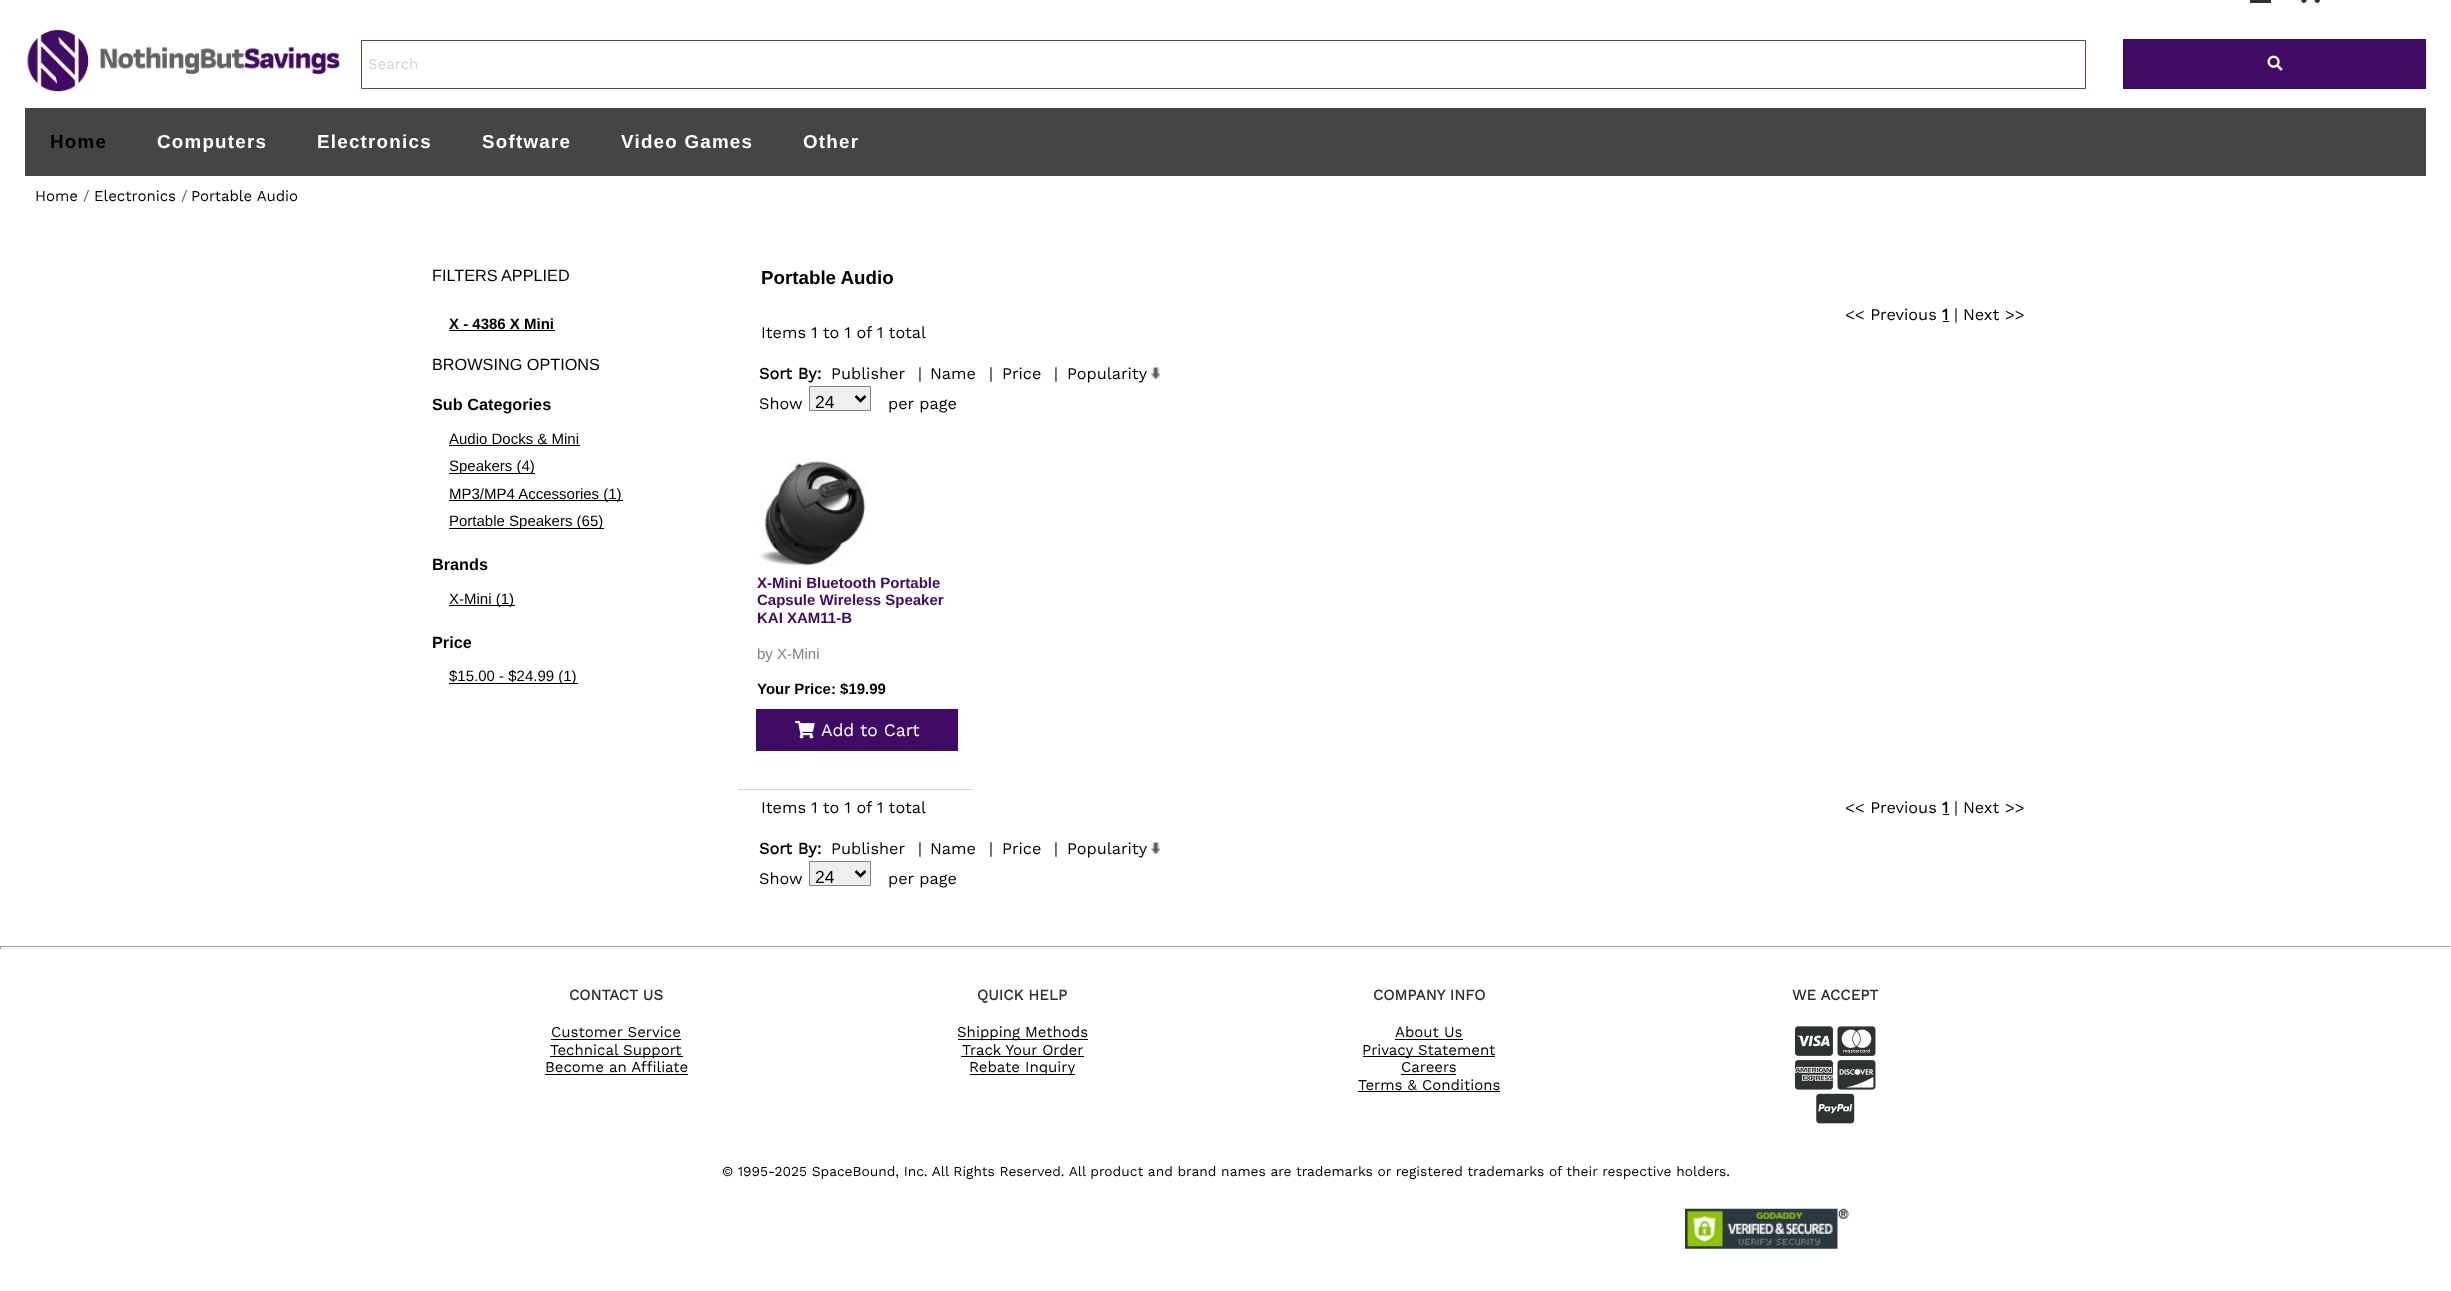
<svg xmlns="http://www.w3.org/2000/svg" width="2451" height="1291">
<style>
.a{font:15px Work Sans;fill:#d3d3d3}
.b{font:bold 18.75px Liberation Sans;letter-spacing:1.25px;fill:#000}
.c{font:bold 18.75px Liberation Sans;letter-spacing:1.25px;fill:#fff}
.d{font:15px Work Sans;fill:#000}
.e{font:15px Work Sans;fill:#5d5d5d}
.f{font:16.25px Liberation Sans;fill:#000}
.g{font:bold 15px Liberation Sans;fill:#000}
.h{font:bold 16.25px Liberation Sans;fill:#000}
.i{font:15px Liberation Sans;fill:#000}
.j{font:bold 18.75px Liberation Sans;fill:#000}
.k{font:16.25px Work Sans;fill:#000}
.l{font:bold 16.25px Work Sans;fill:#000}
.m{font:17.5px Liberation Sans;fill:#000}
.n{font:bold 15px Liberation Sans;fill:#400b65}
.o{font:15px Liberation Sans;fill:#828282}
.p{font:17.5px Work Sans;fill:#fff}
.q{font:bold 15px Work Sans;fill:#2f3232}
.r{font:13.75px Work Sans;fill:#000}
</style>
<rect width="100%" height="100%" fill="#fff"/>
<path fill="#313131" d="M2250 0h21v3H2250z"/>
<image href="1.png" x="2301" y="0" width="19" height="3"/>
<image href="2.png" x="27" y="29" width="313" height="63"/>
<path fill="none" stroke="#639" d="M361.5 40.5h1724v48H361.5z"/>
<path fill="#400b65" d="M2123 39h303v50H2123z"/>
<image href="3.png" x="2267" y="55" width="16" height="16"/>
<path fill="#454545" d="M25 108h2401v68H25z"/>
<path fill="#000" d="M449 330h106v1H449z"/>
<path fill="#000" d="M449 445h131v1H449z"/>
<path fill="#000" d="M449 473h86v1H449z"/>
<path fill="#000" d="M449 500h174v1H449z"/>
<path fill="#000" d="M449 528h155v1H449z"/>
<path fill="#000" d="M449 605h66v1H449z"/>
<path fill="#000" d="M449 683h129v1H449z"/>
<path fill="#000" d="M1943 321h6v1H1943z"/>
<image href="4.png" x="1151" y="367" width="9" height="12"/>
<path fill="#efefef" stroke="#808080" d="M809.5 386.5h61v24H809.5z"/>
<path fill="none" stroke="#000" stroke-width="2.5" d="M855.5 396l5 5l5-5"/>
<path fill="#d6d6d6" d="M738 789h235v1H738z"/>
<image href="5.png" x="759" y="459" width="107" height="108"/>
<path fill="#400b65" d="M756 709h202v42H756z"/>
<image href="6.png" x="795" y="720" width="20" height="19"/>
<path fill="#000" d="M1943 814h6v1H1943z"/>
<image href="4.png" x="1151" y="842" width="9" height="12"/>
<path fill="#efefef" stroke="#808080" d="M809.5 861.5h61v24H809.5z"/>
<path fill="none" stroke="#000" stroke-width="2.5" d="M855.5 871l5 5l5-5"/>
<path fill="#9f9f9f" d="M0 946h2451v1H0z"/>
<path fill="#eee" d="M2450 946h1v3H2450z"/>
<path fill="#eee" d="M0 948h2451v1H0z"/>
<path fill="#9f9f9f" d="M0 946h1v3H0z"/>
<path fill="#000" d="M551 1039h130v1H551z"/>
<path fill="#000" d="M550 1056h133v1H550z"/>
<path fill="#000" d="M545 1074h143v1H545z"/>
<path fill="#000" d="M958 1039h130v1H958z"/>
<path fill="#000" d="M961 1056h123v1H961z"/>
<path fill="#000" d="M970 1074h105v1H970z"/>
<path fill="#000" d="M1395 1039h68v1H1395z"/>
<path fill="#000" d="M1363 1056h132v1H1363z"/>
<path fill="#000" d="M1401 1074h55v1H1401z"/>
<path fill="#000" d="M1358 1091h142v1H1358z"/>
<image href="7.png" x="1795" y="1026" width="38" height="30"/>
<image href="8.png" x="1837" y="1026" width="39" height="30"/>
<image href="9.png" x="1795" y="1060" width="38" height="30"/>
<image href="10.png" x="1837" y="1060" width="39" height="30"/>
<image href="11.png" x="1816" y="1093" width="39" height="31"/>
<image href="12.png" x="1685" y="1208" width="164" height="41"/>
<text class="a" x="368" y="69">Search</text>
<text class="b" x="50" y="148">Home</text>
<text class="c" x="157" y="148">Computers</text>
<text class="c" x="317" y="148">Electronics</text>
<text class="c" x="482" y="148">Software</text>
<text class="c" x="621" y="148">Video Games</text>
<text class="c" x="803" y="148">Other</text>
<text class="d" x="35" y="201">Home</text>
<text class="e" x="83" y="201">/</text>
<text class="d" x="94" y="201">Electronics</text>
<text class="e" x="181" y="201">/</text>
<text class="d" x="191" y="201">Portable Audio</text>
<text class="f" x="432" y="281">FILTERS</text>
<text class="f" x="501" y="281">APPLIED</text>
<text class="g" x="449" y="329">X - 4386 X Mini</text>
<text class="f" x="432" y="370">BROWSING OPTIONS</text>
<text class="h" x="432" y="410">Sub Categories</text>
<text class="i" x="449" y="444">Audio Docks &amp; Mini</text>
<text class="i" x="449" y="471">Speakers (4)</text>
<text class="i" x="449" y="499">MP3/MP4 Accessories (1)</text>
<text class="i" x="449" y="526">Portable Speakers (65)</text>
<text class="h" x="432" y="570">Brands</text>
<text class="i" x="449" y="604">X-Mini (1)</text>
<text class="h" x="432" y="648">Price</text>
<text class="i" x="449" y="681">$15.00 - $24.99 (1)</text>
<text class="j" x="761" y="284">Portable Audio</text>
<text class="k" x="1845" y="320">&lt;&lt; Previous</text>
<text class="l" x="1942" y="320">1</text>
<text class="k" x="1954" y="320">|</text>
<text class="k" x="1963" y="320">Next &gt;&gt;</text>
<text class="k" x="761" y="338">Items 1 to 1 of 1 total</text>
<text class="l" x="759" y="379">Sort By:</text>
<text class="k" x="831" y="379">Publisher</text>
<text class="k" x="918" y="379">|</text>
<text class="k" x="930" y="379">Name</text>
<text class="k" x="989" y="379">|</text>
<text class="k" x="1002" y="379">Price</text>
<text class="k" x="1054" y="379">|</text>
<text class="k" x="1067" y="379">Popularity</text>
<text class="k" x="759" y="409">Show</text>
<text class="m" x="815" y="408">24</text>
<text class="k" x="888" y="409">per page</text>
<text class="n" x="757" y="588">X-Mini Bluetooth Portable</text>
<text class="n" x="757" y="605">Capsule Wireless Speaker</text>
<text class="n" x="757" y="623">KAI XAM11-B</text>
<text class="o" x="757" y="659">by X-Mini</text>
<text class="g" x="757" y="694">Your Price: $19.99</text>
<text class="p" x="821" y="736">Add to Cart</text>
<text class="k" x="761" y="813">Items 1 to 1 of 1 total</text>
<text class="k" x="1845" y="813">&lt;&lt; Previous</text>
<text class="l" x="1942" y="813">1</text>
<text class="k" x="1954" y="813">|</text>
<text class="k" x="1963" y="813">Next &gt;&gt;</text>
<text class="l" x="759" y="854">Sort By:</text>
<text class="k" x="831" y="854">Publisher</text>
<text class="k" x="918" y="854">|</text>
<text class="k" x="930" y="854">Name</text>
<text class="k" x="989" y="854">|</text>
<text class="k" x="1002" y="854">Price</text>
<text class="k" x="1054" y="854">|</text>
<text class="k" x="1067" y="854">Popularity</text>
<text class="k" x="759" y="884">Show</text>
<text class="m" x="815" y="883">24</text>
<text class="k" x="888" y="884">per page</text>
<text class="q" x="569" y="1000">CONTACT US</text>
<text class="d" x="551" y="1037">Customer Service</text>
<text class="d" x="550" y="1055">Technical Support</text>
<text class="d" x="545" y="1072">Become an Affiliate</text>
<text class="q" x="977" y="1000">QUICK HELP</text>
<text class="d" x="957" y="1037">Shipping Methods</text>
<text class="d" x="962" y="1055">Track Your Order</text>
<text class="d" x="969" y="1072">Rebate Inquiry</text>
<text class="q" x="1373" y="1000">COMPANY INFO</text>
<text class="d" x="1395" y="1037">About Us</text>
<text class="d" x="1362" y="1055">Privacy Statement</text>
<text class="d" x="1401" y="1072">Careers</text>
<text class="d" x="1358" y="1090">Terms &amp; Conditions</text>
<text class="q" x="1792" y="1000">WE ACCEPT</text>
<text class="r" x="722" y="1176">© 1995-2025 SpaceBound, Inc. All Rights Reserved. All product and brand names are trademarks or registered trademarks of their respective holders.</text>
</svg>
